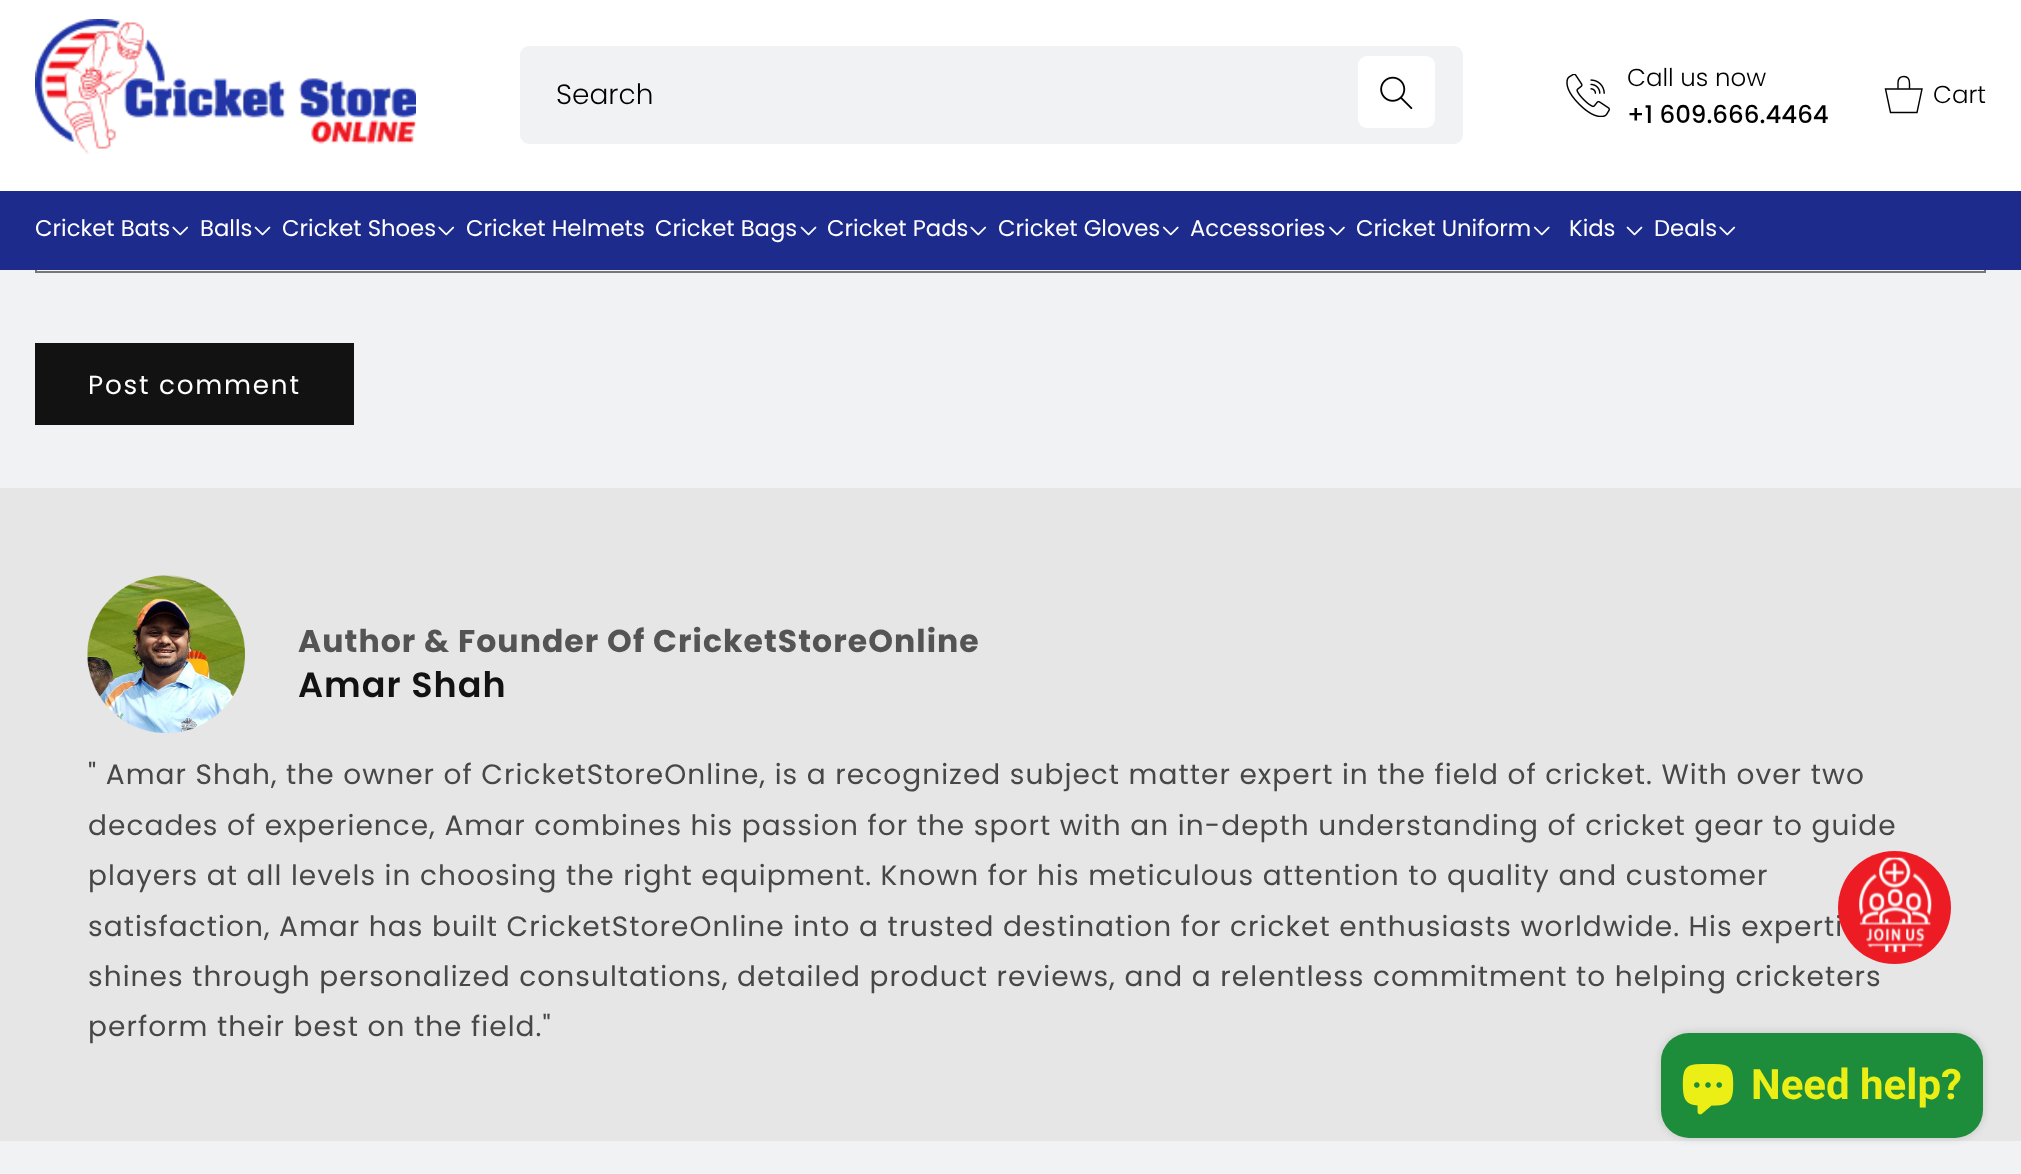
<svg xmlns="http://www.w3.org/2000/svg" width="2021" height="1174">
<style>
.a{font:300 28px Poppins;fill:#000}
.b{font:300 24.5px Poppins;fill:#000}
.c{font:500 24.5px Poppins;fill:#000}
.d{font:22.75px Poppins;fill:#fff}
.e{font:26.25px Poppins;letter-spacing:1.75px;fill:#fff}
.f{font:bold 31.5px Poppins;letter-spacing:1.05px;fill:#545454}
.g{font:600 35px Poppins;letter-spacing:1.05px;fill:#121212}
.h{font:28px Poppins;letter-spacing:1.05px;fill:#474747}
.i{font:bold 42px Roboto;fill:#ebef16}
</style>
<rect width="100%" height="100%" fill="#f1f2f4"/>
<path fill="#f5f5f5" d="M37 270h1948v1H37z"/>
<path fill="none" stroke="#1212128c" stroke-width="2" d="M36 96h1949v176H36z"/>
<path fill="#fff" d="M0 0h2021v191H0z"/>
<image href="1.png" x="35" y="19" width="381" height="135"/>
<rect fill="#f1f2f4" stroke="#f1f2f4" stroke-width="2" x="521" y="47" width="941" height="96" rx="8"/>
<rect fill="#fff" x="1358" y="56" width="77" height="72" rx="9"/>
<image href="2.png" x="1380" y="76" width="33" height="34"/>
<image href="3.png" x="1566" y="74" width="44" height="43"/>
<path fill="none" stroke="#000" stroke-width="1.4" stroke-linecap="square" d="M1898 88v-5c0-3.5 1.5-6.5 6-6.5c3 0 5.5 1.5 5.5 7v4.5"/>
<path fill="none" stroke="#000" stroke-width="1.4" d="M1890.5 112.5l-5-23.5h36.5l-5 23.5z"/>
<path fill="#1d2b8c" d="M0 191h2021v79H0z"/>
<image href="4.png" x="172" y="226" width="17" height="10"/>
<image href="5.png" x="254" y="226" width="17" height="10"/>
<image href="4.png" x="438" y="226" width="17" height="10"/>
<image href="5.png" x="800" y="226" width="17" height="10"/>
<image href="4.png" x="970" y="226" width="17" height="10"/>
<image href="6.png" x="1162" y="226" width="17" height="10"/>
<image href="7.png" x="1329" y="226" width="16" height="10"/>
<image href="6.png" x="1533" y="226" width="17" height="10"/>
<image href="5.png" x="1626" y="226" width="17" height="10"/>
<image href="4.png" x="1719" y="226" width="17" height="10"/>
<path fill="#121212" d="M35 343h319v82H35z"/>
<path fill="#e6e6e6" d="M0 488h2021v653H0z"/>
<image href="8.png" x="87" y="575" width="158" height="158"/>
<rect fill="#00000026" filter="blur(4.5px)" x="1661" y="1033" width="322" height="105" rx="28"/>
<rect fill="#1d8c3b" x="1661" y="1033" width="322" height="105" rx="28"/>
<image href="10.png" x="1682" y="1064" width="52" height="51"/>
<text class="a" x="556" y="104">Search</text>
<text class="b" x="1627" y="86">Call us now</text>
<text class="c" x="1627" y="123">+1 609.666.4464</text>
<text class="b" x="1933" y="103">Cart</text>
<text class="d" x="35" y="236">Cricket Bats</text>
<text class="d" x="200" y="236">Balls</text>
<text class="d" x="282" y="236">Cricket Shoes</text>
<text class="d" x="466" y="236">Cricket Helmets</text>
<text class="d" x="655" y="236">Cricket Bags</text>
<text class="d" x="827" y="236">Cricket Pads</text>
<text class="d" x="998" y="236">Cricket Gloves</text>
<text class="d" x="1190" y="236">Accessories</text>
<text class="d" x="1356" y="236">Cricket Uniform</text>
<text class="d" x="1569" y="236">Kids</text>
<text class="d" x="1654" y="236">Deals</text>
<text class="e" x="88" y="394">Post comment</text>
<text class="f" x="298" y="652">Author &amp; Founder Of CricketStoreOnline</text>
<text class="g" x="298" y="697">Amar Shah</text>
<text class="h" x="88" y="784">" Amar Shah, the owner of CricketStoreOnline, is a recognized subject matter expert in the field of cricket. With over two</text>
<text class="h" x="88" y="835">decades of experience, Amar combines his passion for the sport with an in-depth understanding of cricket gear to guide</text>
<text class="h" x="88" y="885">players at all levels in choosing the right equipment. Known for his meticulous attention to quality and customer</text>
<text class="h" x="88" y="936">satisfaction, Amar has built CricketStoreOnline into a trusted destination for cricket enthusiasts worldwide. His experti</text>
<text class="h" x="88" y="986">shines through personalized consultations, detailed product reviews, and a relentless commitment to helping cricketers</text>
<text class="h" x="88" y="1036">perform their best on the field."</text>
<circle fill="#ed1c24" cx="1894.5" cy="907.5" r="56.5"/>
<image href="9.png" x="1859" y="856" width="73" height="97"/>
<text class="i" x="1751" y="1099">Need help?</text>
</svg>
